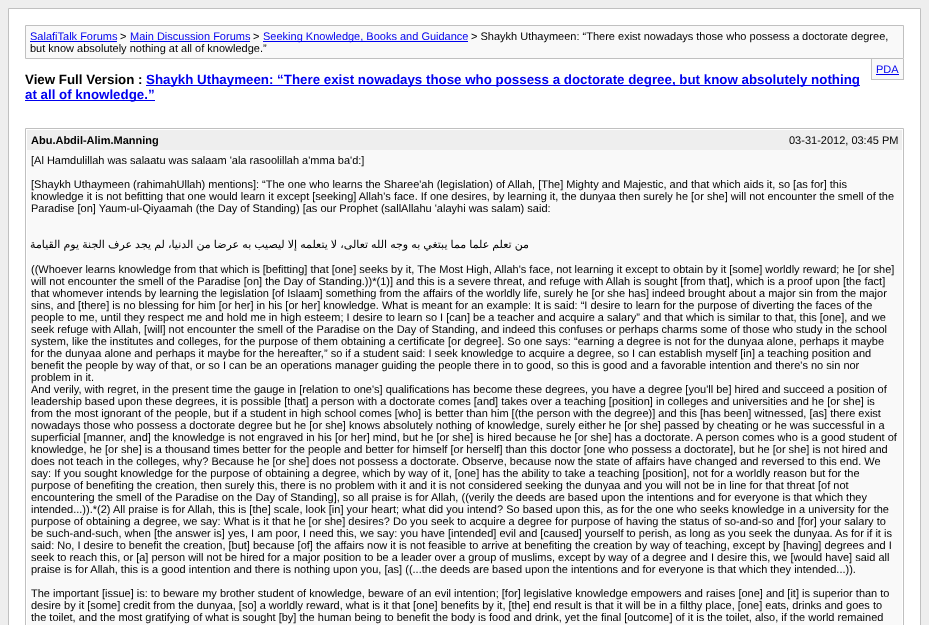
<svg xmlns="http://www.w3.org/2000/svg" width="929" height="625">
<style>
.a{font:11px Liberation Sans;fill:#00e}
.b{font:11px Liberation Sans;fill:#000}
.c{font:bold 13.33px Liberation Sans;fill:#000}
.d{font:bold 13.33px Liberation Sans;fill:#00e}
.e{font:bold 11px Liberation Sans;fill:#000}
.f{font:11px DejaVu Sans;direction:rtl;fill:#000}
</style>
<rect width="100%" height="100%" fill="#eee"/>
<path fill="#fff" stroke="#c0c0c0" d="M8.5 8.5h912v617H8.5z"/>
<path fill="#f9f9f9" stroke="#c0c0c0" d="M25.5 25.5h878v33H25.5z"/>
<path fill="#00e" d="M30 41h87v1H30z"/>
<path fill="#00e" d="M130 41h120v1H130z"/>
<path fill="#00e" d="M263 41h205v1H263z"/>
<path fill="#f9f9f9" d="M872 59h31v20H872z"/>
<path fill="#c0c0c0" d="M903 59h1v21H903z"/>
<path fill="#c0c0c0" d="M871 79h33v1H871z"/>
<path fill="#c0c0c0" d="M871 59h1v21H871z"/>
<path fill="#00e" d="M876 74h23v1H876z"/>
<path fill="#00e" d="M146 85h714v1H146z"/>
<path fill="#00e" d="M25 100h130v1H25z"/>
<path fill="none" stroke="#c0c0c0" d="M25.5 128.5h878v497H25.5z"/>
<path fill="#eee" d="M27 130h875v20H27z"/>
<path fill="#f9f9f9" d="M27 150h875v475H27z"/>
<text class="a" x="30" y="40">SalafiTalk Forums</text>
<text class="b" x="120" y="40">&gt;</text>
<text class="a" x="130" y="40">Main Discussion Forums</text>
<text class="b" x="253" y="40">&gt;</text>
<text class="a" x="263" y="40">Seeking Knowledge, Books and Guidance</text>
<text class="b" x="471" y="40">&gt; Shaykh Uthaymeen: “There exist nowadays those who possess a doctorate degree,</text>
<text class="b" x="30" y="52">but know absolutely nothing at all of knowledge.”</text>
<text class="a" x="876" y="73">PDA</text>
<text class="c" x="25" y="84">View Full Version :</text>
<text class="d" x="146" y="84">Shaykh Uthaymeen: “There exist nowadays those who possess a doctorate degree, but know absolutely nothing</text>
<text class="d" x="25" y="99">at all of knowledge.”</text>
<text class="e" x="31" y="144">Abu.Abdil-Alim.Manning</text>
<text class="b" x="789" y="144">03-31-2012, 03:45 PM</text>
<text class="b" x="31" y="164">[Al Hamdulillah was salaatu was salaam 'ala rasoolillah a'mma ba'd:]</text>
<text class="b" x="31" y="188">[Shaykh Uthaymeen (rahimahUllah) mentions]: “The one who learns the Sharee'ah (legislation) of Allah, [The] Mighty and Majestic, and that which aids it, so [as for] this</text>
<text class="b" x="31" y="200">knowledge it is not befitting that one would learn it except [seeking] Allah's face. If one desires, by learning it, the dunyaa then surely he [or she] will not encounter the smell of the</text>
<text class="b" x="31" y="212">Paradise [on] Yaum-ul-Qiyaamah (the Day of Standing) [as our Prophet (sallAllahu 'alayhi was salam) said:</text>
<text class="f" x="529" y="248" word-spacing="-0.4">من تعلم علما مما يبتغي به وجه الله تعالى، لا يتعلمه إلا ليصيب به عرضا من الدنيا، لم يجد عرف الجنة يوم القيامة</text>
<text class="b" x="31" y="273">((Whoever learns knowledge from that which is [befitting] that [one] seeks by it, The Most High, Allah's face, not learning it except to obtain by it [some] worldly reward; he [or she]</text>
<text class="b" x="31" y="285">will not encounter the smell of the Paradise [on] the Day of Standing.))*(1)] and this is a severe threat, and refuge with Allah is sought [from that], which is a proof upon [the fact]</text>
<text class="b" x="31" y="297">that whomever intends by learning the legislation [of Islaam] something from the affairs of the worldly life, surely he [or she has] indeed brought about a major sin from the major</text>
<text class="b" x="31" y="309">sins, and [there] is no blessing for him [or her] in his [or her] knowledge. What is meant for an example: It is said: “I desire to learn for the purpose of diverting the faces of the</text>
<text class="b" x="31" y="321">people to me, until they respect me and hold me in high esteem; I desire to learn so I [can] be a teacher and acquire a salary” and that which is similar to that, this [one], and we</text>
<text class="b" x="31" y="333">seek refuge with Allah, [will] not encounter the smell of the Paradise on the Day of Standing, and indeed this confuses or perhaps charms some of those who study in the school</text>
<text class="b" x="31" y="345">system, like the institutes and colleges, for the purpose of them obtaining a certificate [or degree]. So one says: “earning a degree is not for the dunyaa alone, perhaps it maybe</text>
<text class="b" x="31" y="357">for the dunyaa alone and perhaps it maybe for the hereafter,” so if a student said: I seek knowledge to acquire a degree, so I can establish myself [in] a teaching position and</text>
<text class="b" x="31" y="369">benefit the people by way of that, or so I can be an operations manager guiding the people there in to good, so this is good and a favorable intention and there's no sin nor</text>
<text class="b" x="31" y="381">problem in it.</text>
<text class="b" x="31" y="393">And verily, with regret, in the present time the gauge in [relation to one's] qualifications has become these degrees, you have a degree [you'll be] hired and succeed a position of</text>
<text class="b" x="31" y="405">leadership based upon these degrees, it is possible [that] a person with a doctorate comes [and] takes over a teaching [position] in colleges and universities and he [or she] is</text>
<text class="b" x="31" y="417">from the most ignorant of the people, but if a student in high school comes [who] is better than him [(the person with the degree)] and this [has been] witnessed, [as] there exist</text>
<text class="b" x="31" y="429">nowadays those who possess a doctorate degree but he [or she] knows absolutely nothing of knowledge, surely either he [or she] passed by cheating or he was successful in a</text>
<text class="b" x="31" y="441">superficial [manner, and] the knowledge is not engraved in his [or her] mind, but he [or she] is hired because he [or she] has a doctorate. A person comes who is a good student of</text>
<text class="b" x="31" y="453">knowledge, he [or she] is a thousand times better for the people and better for himself [or herself] than this doctor [one who possess a doctorate], but he [or she] is not hired and</text>
<text class="b" x="31" y="465">does not teach in the colleges, why? Because he [or she] does not possess a doctorate. Observe, because now the state of affairs have changed and reversed to this end. We</text>
<text class="b" x="31" y="477">say: If you sought knowledge for the purpose of obtaining a degree, which by way of it, [one] has the ability to take a teaching [position], not for a worldly reason but for the</text>
<text class="b" x="31" y="489">purpose of benefiting the creation, then surely this, there is no problem with it and it is not considered seeking the dunyaa and you will not be in line for that threat [of not</text>
<text class="b" x="31" y="501">encountering the smell of the Paradise on the Day of Standing], so all praise is for Allah, ((verily the deeds are based upon the intentions and for everyone is that which they</text>
<text class="b" x="31" y="513">intended...)).*(2)</text>
<text class="b" x="113" y="513">All praise is for Allah, this is [the] scale, look [in] your heart; what did you intend? So based upon this, as for the one who seeks knowledge in a university for the</text>
<text class="b" x="31" y="525">purpose of obtaining a degree, we say: What is it that he [or she] desires? Do you seek to acquire a degree for purpose of having the status of so-and-so and [for] your salary to</text>
<text class="b" x="31" y="537">be such-and-such, when [the answer is] yes, I am poor, I need this, we say: you have [intended] evil and [caused] yourself to perish, as long as you seek the dunyaa. As for if it is</text>
<text class="b" x="31" y="549">said: No, I desire to benefit the creation, [but] because [of] the affairs now it is not feasible to arrive at benefiting the creation by way of teaching, except by [having] degrees and I</text>
<text class="b" x="31" y="561">seek to reach this, or [a] person will not be hired for a major position to be a leader over a group of muslims, except by way of a degree and I desire this, we [would have] said all</text>
<text class="b" x="31" y="573">praise is for Allah, this is a good intention and there is nothing upon you, [as] ((...the deeds are based upon the intentions and for everyone is that which they intended...)).</text>
<text class="b" x="31" y="597">The important [issue] is: to beware my brother student of knowledge, beware of an evil intention; [for] legislative knowledge empowers and raises [one] and [it] is superior than to</text>
<text class="b" x="31" y="609">desire by it [some] credit from the dunyaa, [so] a worldly reward, what is it that [one] benefits by it, [the] end result is that it will be in a filthy place, [one] eats, drinks and goes to</text>
<text class="b" x="31" y="621">the toilet, and the most gratifying of what is sought [by] the human being to benefit the body is food and drink, yet the final [outcome] of it is the toilet, also, if the world remained</text>
</svg>
